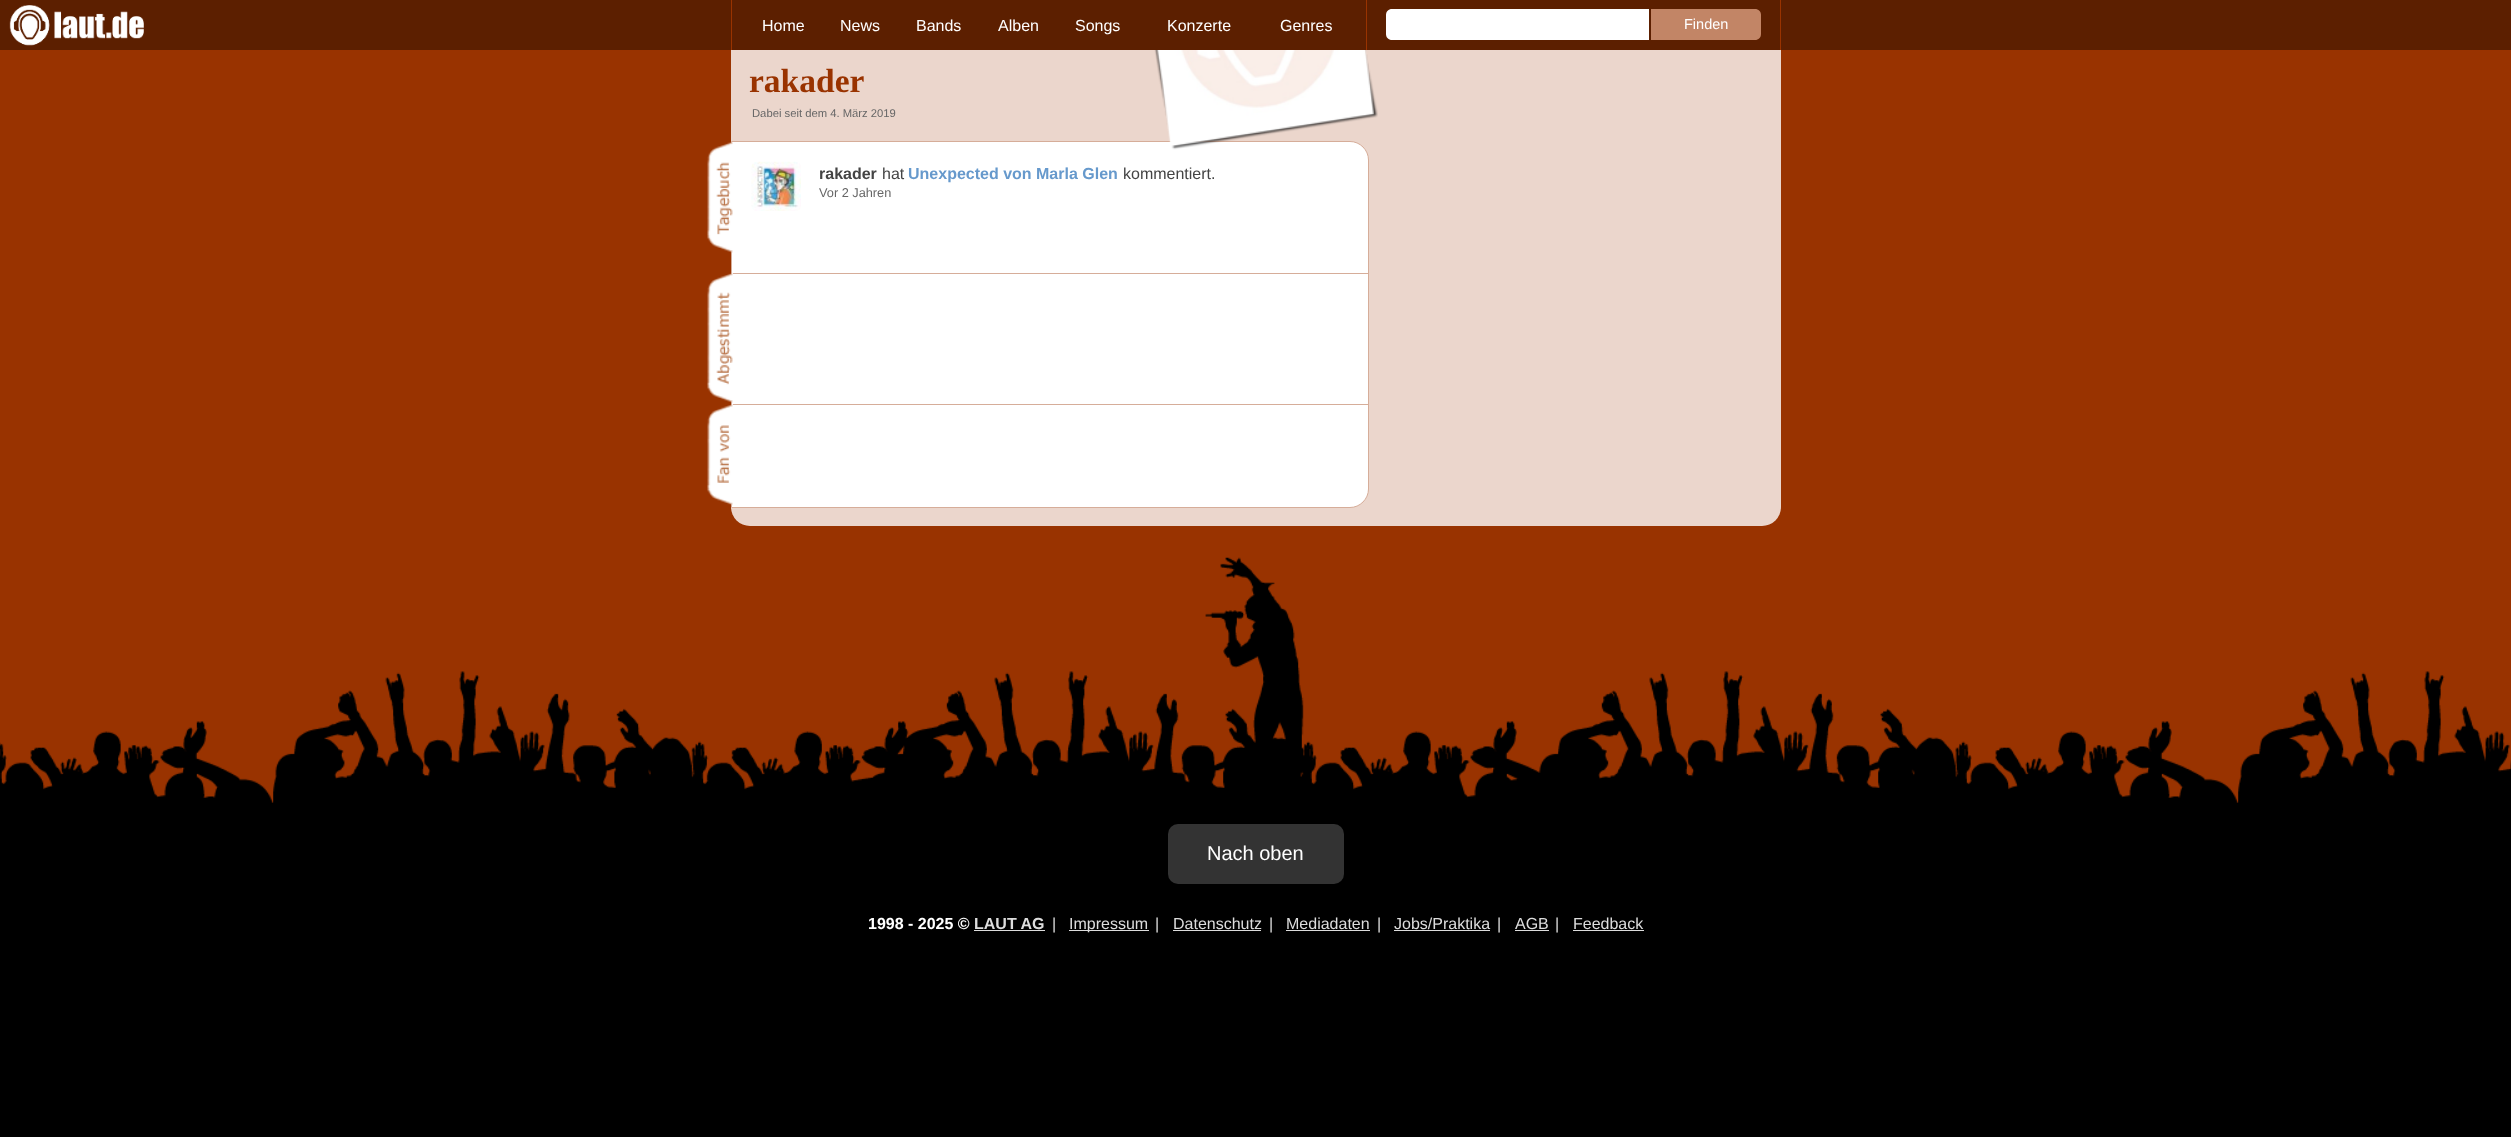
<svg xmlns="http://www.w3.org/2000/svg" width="2511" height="1137">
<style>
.a{font:16px Liberation Sans;fill:#fff}
.b{font:14.5px Liberation Sans;fill:#fff}
.c{font:bold 33.5px Liberation Serif;fill:#930}
.d{font:11.25px Liberation Sans;fill:#666}
.e{font:bold 16px Liberation Sans;fill:#444}
.f{font:16px Liberation Sans;fill:#444}
.g{font:bold 16px Liberation Sans;fill:#69c}
.h{font:12.75px Liberation Sans;fill:#666}
.i{font:20px Liberation Sans;fill:#fff}
.j{font:bold 16px Liberation Sans;fill:#fff}
.k{font:bold 16px Liberation Sans;fill:#ddd}
.l{font:16px Liberation Sans;fill:#ddd}
</style>
<rect width="100%" height="100%" fill="#930"/>
<rect fill="#ebd6cc" x="731" y="-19" width="1050" height="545" rx="19"/>
<path fill="#5c1f00" d="M0 0h2511v50H0z"/>
<image href="1.png" x="9" y="5" width="135" height="41"/>
<path fill="#930" d="M731 0h1v50H731z"/>
<path fill="#930" d="M1780 0h1v50H1780z"/>
<path fill="#930" d="M1366 0h1v50H1366z"/>
<path fill="#fff" d="M1392 9h257v31h-257c-3.5 0-6-2.5-6-6v-19c0-3.5 2.5-6 6-6z"/>
<path fill="#c28566" d="M1651 9h104c3.5 0 6 2.5 6 6v19c0 3.5-2.5 6-6 6h-104z"/>
<path fill="#fff" stroke="#d6ad99" d="M731.5 141.5h618.5c10 0 18.5 8.5 18.5 18.5v329c0 10-8.5 18.5-18.5 18.5h-618.5z"/>
<image href="2.png" x="1154" y="50" width="224" height="100"/>
<image href="3.png" x="707" y="141" width="26" height="112"/>
<image href="4.png" x="751" y="161" width="50" height="50"/>
<path fill="#d6ad99" d="M733 273h635v1H733z"/>
<image href="5.png" x="707" y="272" width="26" height="131"/>
<path fill="#d6ad99" d="M733 404h635v1H733z"/>
<image href="6.png" x="707" y="404" width="26" height="102"/>
<image href="7.png" x="0" y="557" width="2511" height="580"/>
<rect fill="#333" x="1168" y="824" width="176" height="60" rx="10"/>
<path fill="#ddd" d="M974 930h71v1H974z"/>
<path fill="#ddd" d="M1069 930h80v1H1069z"/>
<path fill="#ddd" d="M1173 930h88v1H1173z"/>
<path fill="#ddd" d="M1286 930h84v1H1286z"/>
<path fill="#ddd" d="M1394 930h96v1H1394z"/>
<path fill="#ddd" d="M1515 930h34v1H1515z"/>
<path fill="#ddd" d="M1573 930h71v1H1573z"/>
<text class="a" x="762" y="31">Home</text>
<text class="a" x="840" y="31">News</text>
<text class="a" x="916" y="31">Bands</text>
<text class="a" x="998" y="31">Alben</text>
<text class="a" x="1075" y="31">Songs</text>
<text class="a" x="1167" y="31">Konzerte</text>
<text class="a" x="1280" y="31">Genres</text>
<text class="b" x="1684" y="29">Finden</text>
<text class="c" x="749" y="92">rakader</text>
<text class="d" x="752" y="117">Dabei seit dem 4. März 2019</text>
<text class="e" x="819" y="179">rakader</text>
<text class="f" x="882" y="179">hat</text>
<text class="g" x="908" y="179">Unexpected von Marla Glen</text>
<text class="f" x="1123" y="179">kommentiert.</text>
<text class="h" x="819" y="197">Vor 2 Jahren</text>
<text class="i" x="1207" y="860">Nach oben</text>
<text class="j" x="868" y="929">1998 - 2025 ©</text>
<text class="k" x="974" y="929">LAUT AG</text>
<text class="l" x="1052" y="929">|</text>
<text class="l" x="1069" y="929">Impressum</text>
<text class="l" x="1155" y="929">|</text>
<text class="l" x="1173" y="929">Datenschutz</text>
<text class="l" x="1269" y="929">|</text>
<text class="l" x="1286" y="929">Mediadaten</text>
<text class="l" x="1377" y="929">|</text>
<text class="l" x="1394" y="929">Jobs/Praktika</text>
<text class="l" x="1497" y="929">|</text>
<text class="l" x="1515" y="929">AGB</text>
<text class="l" x="1555" y="929">|</text>
<text class="l" x="1573" y="929">Feedback</text>
</svg>
